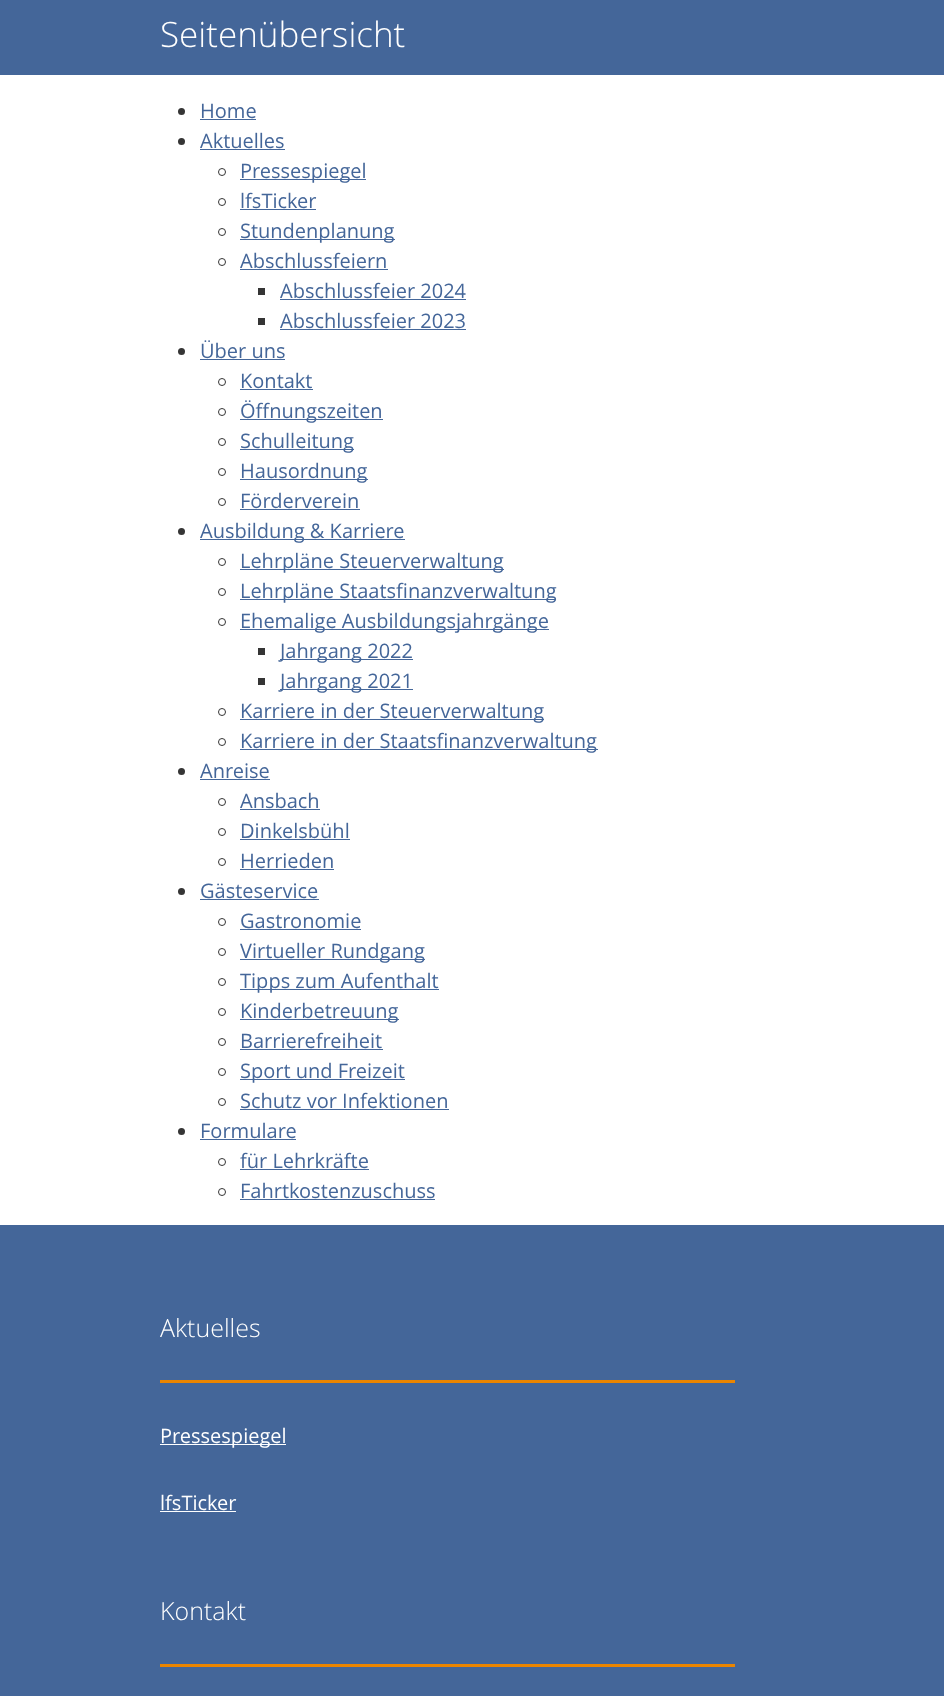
<svg xmlns="http://www.w3.org/2000/svg" width="944" height="1696">
<style>
.a{font:300 35px Open Sans;fill:#fff}
.b{font:20px Open Sans;fill:#469}
.c{font:300 25px Open Sans;fill:#fff}
.d{font:20px Open Sans;fill:#fff}
</style>
<rect width="100%" height="100%" fill="#fff"/>
<path fill="#469" d="M0 0h944v75H0z"/>
<circle fill="#353535" cx="181.5" cy="111.5" r="3.5"/>
<path fill="#469" d="M200 119h56v1H200z"/>
<circle fill="#353535" cx="181.5" cy="141.5" r="3.5"/>
<path fill="#469" d="M200 149h85v1H200z"/>
<circle fill="none" stroke="#353535" cx="222" cy="172" r="3.5"/>
<path fill="#469" d="M240 179h126v1H240z"/>
<circle fill="none" stroke="#353535" cx="222" cy="202" r="3.5"/>
<path fill="#469" d="M240 209h76v1H240z"/>
<circle fill="none" stroke="#353535" cx="222" cy="232" r="3.5"/>
<path fill="#469" d="M240 239h155v1H240z"/>
<circle fill="none" stroke="#353535" cx="222" cy="262" r="3.5"/>
<path fill="#469" d="M240 269h148v1H240z"/>
<path fill="#353535" d="M258 288h7v7H258z"/>
<path fill="#469" d="M280 299h186v1H280z"/>
<path fill="#353535" d="M258 318h7v7H258z"/>
<path fill="#469" d="M280 329h186v1H280z"/>
<circle fill="#353535" cx="181.5" cy="351.5" r="3.5"/>
<path fill="#469" d="M200 359h85v1H200z"/>
<circle fill="none" stroke="#353535" cx="222" cy="382" r="3.5"/>
<path fill="#469" d="M240 389h73v1H240z"/>
<circle fill="none" stroke="#353535" cx="222" cy="412" r="3.5"/>
<path fill="#469" d="M240 419h143v1H240z"/>
<circle fill="none" stroke="#353535" cx="222" cy="442" r="3.5"/>
<path fill="#469" d="M240 449h114v1H240z"/>
<circle fill="none" stroke="#353535" cx="222" cy="472" r="3.5"/>
<path fill="#469" d="M240 479h128v1H240z"/>
<circle fill="none" stroke="#353535" cx="222" cy="502" r="3.5"/>
<path fill="#469" d="M240 509h120v1H240z"/>
<circle fill="#353535" cx="181.5" cy="531.5" r="3.5"/>
<path fill="#469" d="M200 539h205v1H200z"/>
<circle fill="none" stroke="#353535" cx="222" cy="562" r="3.5"/>
<path fill="#469" d="M240 569h264v1H240z"/>
<circle fill="none" stroke="#353535" cx="222" cy="592" r="3.5"/>
<path fill="#469" d="M240 599h316v1H240z"/>
<circle fill="none" stroke="#353535" cx="222" cy="622" r="3.5"/>
<path fill="#469" d="M240 629h309v1H240z"/>
<path fill="#353535" d="M258 648h7v7H258z"/>
<path fill="#469" d="M280 659h133v1H280z"/>
<path fill="#353535" d="M258 678h7v7H258z"/>
<path fill="#469" d="M280 689h133v1H280z"/>
<circle fill="none" stroke="#353535" cx="222" cy="712" r="3.5"/>
<path fill="#469" d="M240 719h304v1H240z"/>
<circle fill="none" stroke="#353535" cx="222" cy="742" r="3.5"/>
<path fill="#469" d="M240 749h358v1H240z"/>
<circle fill="#353535" cx="181.5" cy="771.5" r="3.5"/>
<path fill="#469" d="M200 779h70v1H200z"/>
<circle fill="none" stroke="#353535" cx="222" cy="802" r="3.5"/>
<path fill="#469" d="M240 809h80v1H240z"/>
<circle fill="none" stroke="#353535" cx="222" cy="832" r="3.5"/>
<path fill="#469" d="M240 839h110v1H240z"/>
<circle fill="none" stroke="#353535" cx="222" cy="862" r="3.5"/>
<path fill="#469" d="M240 869h94v1H240z"/>
<circle fill="#353535" cx="181.5" cy="891.5" r="3.5"/>
<path fill="#469" d="M200 899h119v1H200z"/>
<circle fill="none" stroke="#353535" cx="222" cy="922" r="3.5"/>
<path fill="#469" d="M240 929h121v1H240z"/>
<circle fill="none" stroke="#353535" cx="222" cy="952" r="3.5"/>
<path fill="#469" d="M240 959h185v1H240z"/>
<circle fill="none" stroke="#353535" cx="222" cy="982" r="3.5"/>
<path fill="#469" d="M240 989h199v1H240z"/>
<circle fill="none" stroke="#353535" cx="222" cy="1012" r="3.5"/>
<path fill="#469" d="M240 1019h159v1H240z"/>
<circle fill="none" stroke="#353535" cx="222" cy="1042" r="3.5"/>
<path fill="#469" d="M240 1049h143v1H240z"/>
<circle fill="none" stroke="#353535" cx="222" cy="1072" r="3.5"/>
<path fill="#469" d="M240 1079h165v1H240z"/>
<circle fill="none" stroke="#353535" cx="222" cy="1102" r="3.5"/>
<path fill="#469" d="M240 1109h209v1H240z"/>
<circle fill="#353535" cx="181.5" cy="1131.5" r="3.5"/>
<path fill="#469" d="M200 1139h96v1H200z"/>
<circle fill="none" stroke="#353535" cx="222" cy="1162" r="3.5"/>
<path fill="#469" d="M240 1169h129v1H240z"/>
<circle fill="none" stroke="#353535" cx="222" cy="1192" r="3.5"/>
<path fill="#469" d="M240 1199h195v1H240z"/>
<path fill="#469" d="M0 1225h944v471H0z"/>
<path fill="#eb8500" d="M160 1380h575v3H160z"/>
<path fill="#fff" d="M160 1444h126v1H160z"/>
<path fill="#fff" d="M160 1511h76v1H160z"/>
<path fill="#eb8500" d="M160 1664h575v3H160z"/>
<text class="a" x="160" y="47">Seitenübersicht</text>
<text class="b" x="200" y="118">Home</text>
<text class="b" x="200" y="148">Aktuelles</text>
<text class="b" x="240" y="178">Pressespiegel</text>
<text class="b" x="240" y="208">lfsTicker</text>
<text class="b" x="240" y="238">Stundenplanung</text>
<text class="b" x="240" y="268">Abschlussfeiern</text>
<text class="b" x="280" y="298">Abschlussfeier 2024</text>
<text class="b" x="280" y="328">Abschlussfeier 2023</text>
<text class="b" x="200" y="358">Über uns</text>
<text class="b" x="240" y="388">Kontakt</text>
<text class="b" x="240" y="418">Öffnungszeiten</text>
<text class="b" x="240" y="448">Schulleitung</text>
<text class="b" x="240" y="478">Hausordnung</text>
<text class="b" x="240" y="508">Förderverein</text>
<text class="b" x="200" y="538">Ausbildung &amp; Karriere</text>
<text class="b" x="240" y="568">Lehrpläne Steuerverwaltung</text>
<text class="b" x="240" y="598">Lehrpläne Staatsfinanzverwaltung</text>
<text class="b" x="240" y="628">Ehemalige Ausbildungsjahrgänge</text>
<text class="b" x="280" y="658">Jahrgang 2022</text>
<text class="b" x="280" y="688">Jahrgang 2021</text>
<text class="b" x="240" y="718">Karriere in der Steuerverwaltung</text>
<text class="b" x="240" y="748">Karriere in der Staatsfinanzverwaltung</text>
<text class="b" x="200" y="778">Anreise</text>
<text class="b" x="240" y="808">Ansbach</text>
<text class="b" x="240" y="838">Dinkelsbühl</text>
<text class="b" x="240" y="868">Herrieden</text>
<text class="b" x="200" y="898">Gästeservice</text>
<text class="b" x="240" y="928">Gastronomie</text>
<text class="b" x="240" y="958">Virtueller Rundgang</text>
<text class="b" x="240" y="988">Tipps zum Aufenthalt</text>
<text class="b" x="240" y="1018">Kinderbetreuung</text>
<text class="b" x="240" y="1048">Barrierefreiheit</text>
<text class="b" x="240" y="1078">Sport und Freizeit</text>
<text class="b" x="240" y="1108">Schutz vor Infektionen</text>
<text class="b" x="200" y="1138">Formulare</text>
<text class="b" x="240" y="1168">für Lehrkräfte</text>
<text class="b" x="240" y="1198">Fahrtkostenzuschuss</text>
<text class="c" x="160" y="1337">Aktuelles</text>
<text class="d" x="160" y="1443">Pressespiegel</text>
<text class="d" x="160" y="1510">lfsTicker</text>
<text class="c" x="160" y="1620">Kontakt</text>
</svg>
